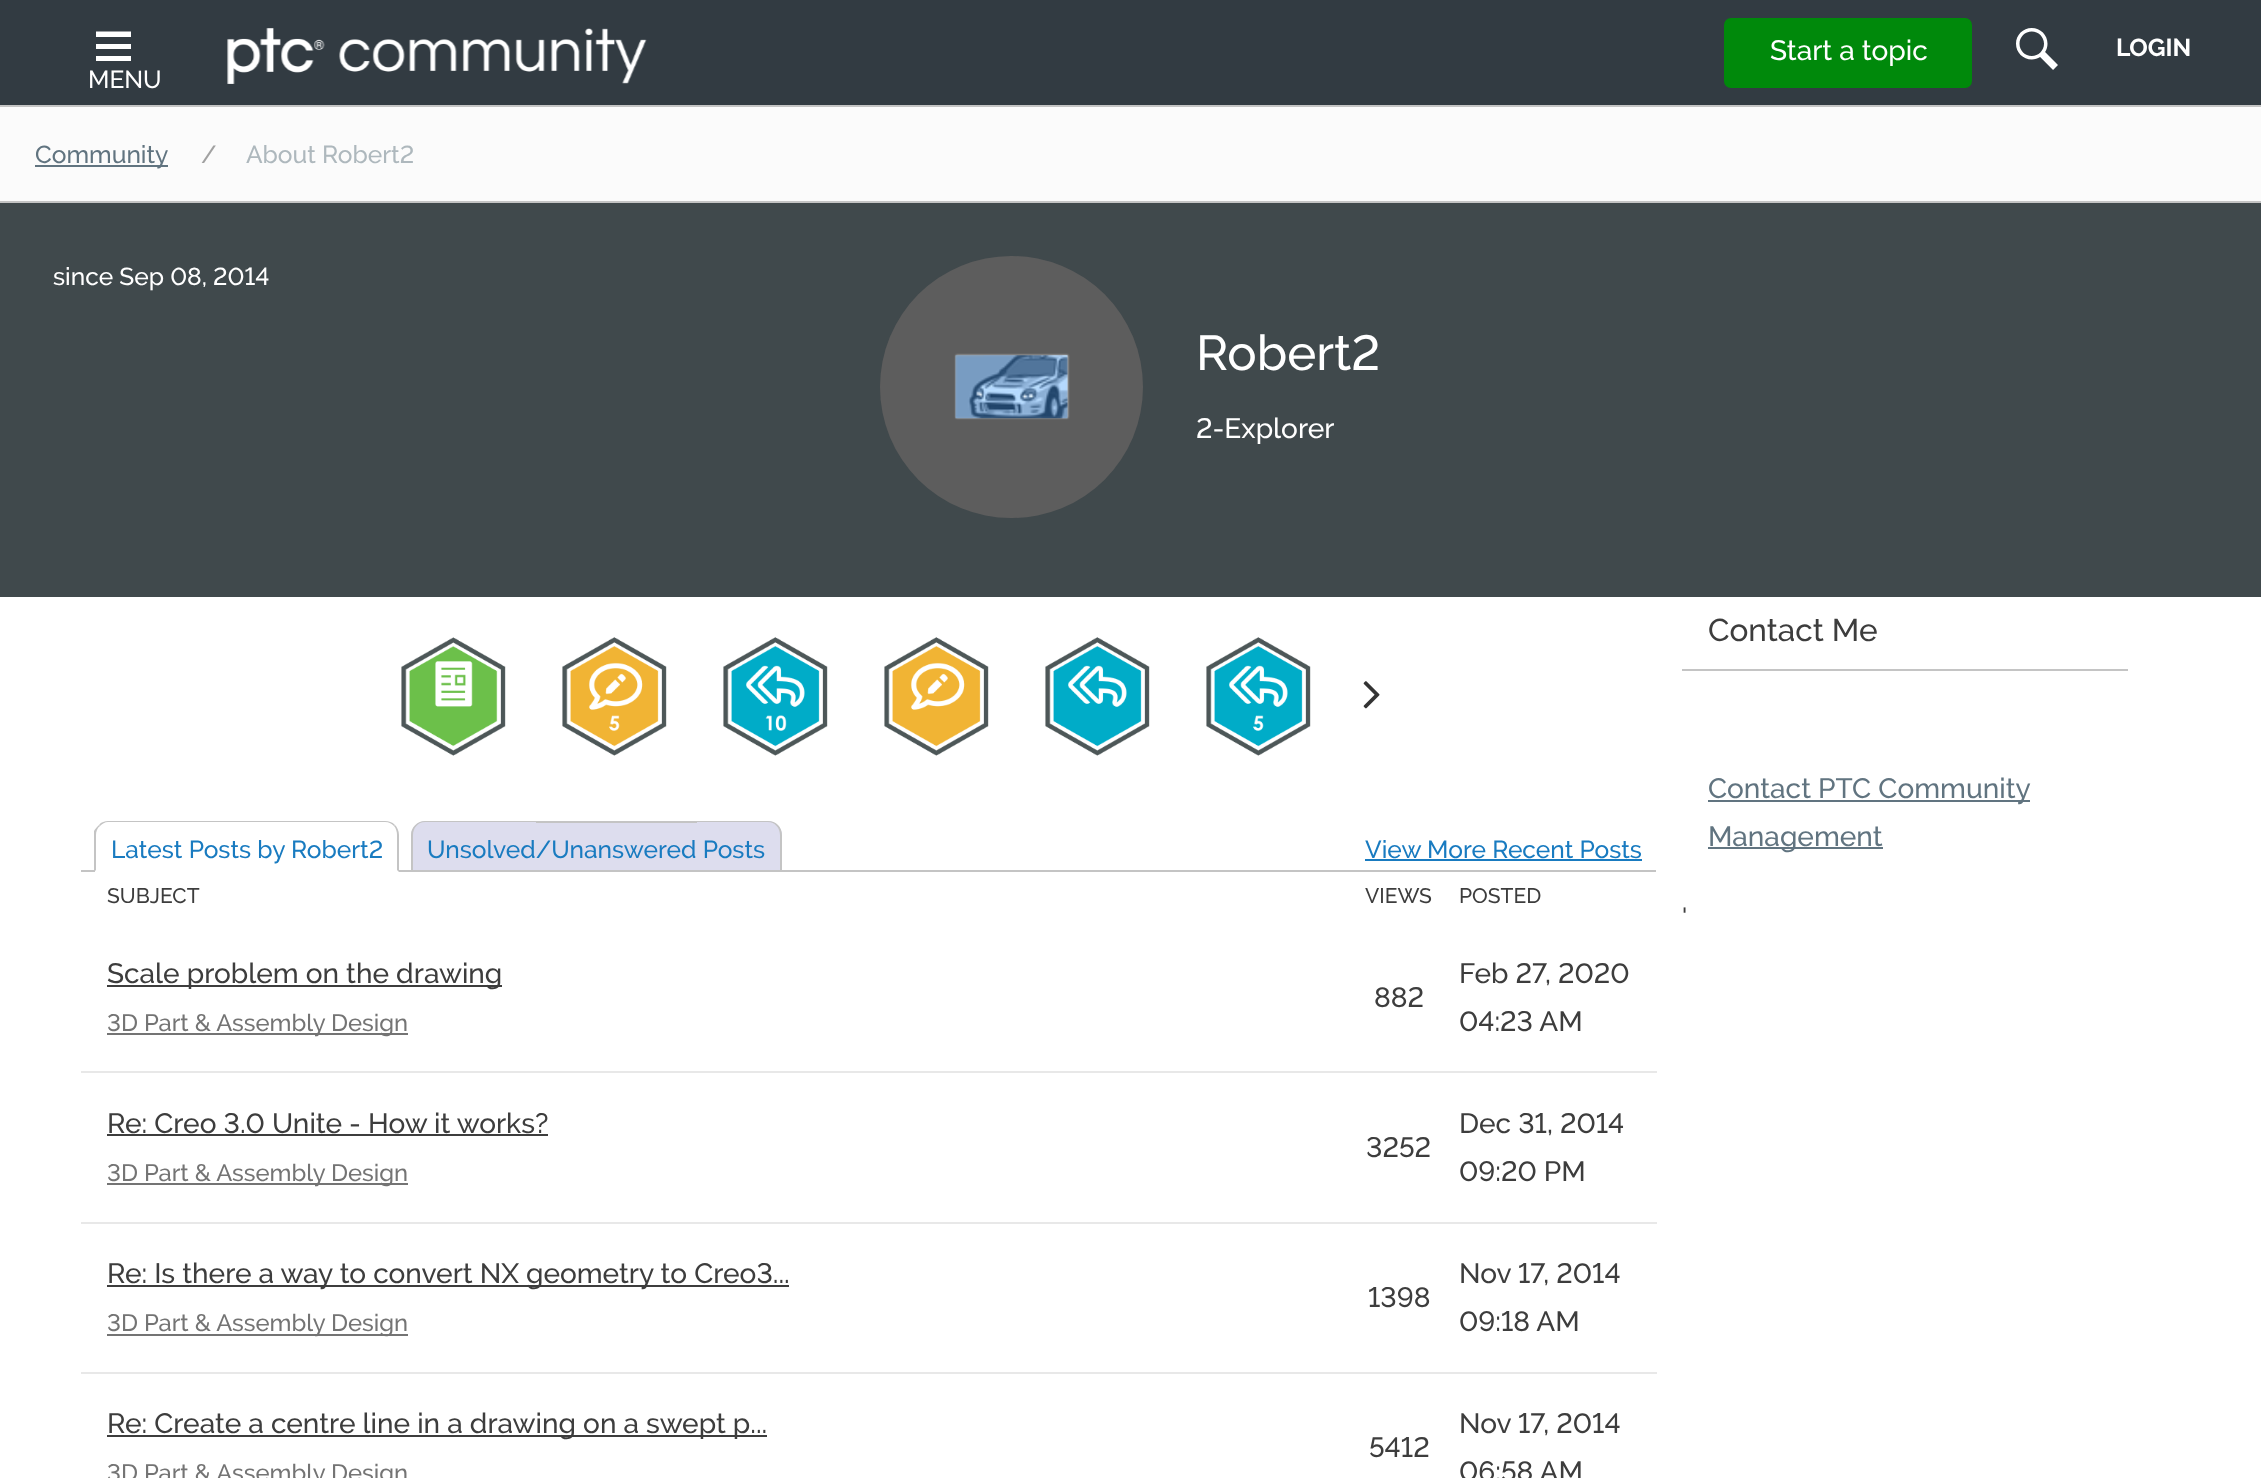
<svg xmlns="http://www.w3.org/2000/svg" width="2261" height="1478">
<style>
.a{font:500 28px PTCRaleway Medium;fill:#fff}
.b{font:bold 24.5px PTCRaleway;fill:#fff}
.c{font:500 24.5px PTCRaleway Medium;fill:#fff}
.d{font:500 24.5px PTCRaleway Medium;fill:#617480}
.e{font:500 24.5px PTCRaleway Medium;fill:#a1a1a1}
.f{font:500 24.5px PTCRaleway Medium;fill:#aeb8bd}
.g{font:500 49px PTCRaleway Medium;fill:#fff}
.h{font:500 31.5px PTCRaleway Medium;fill:#3d3d3d}
.i{font:500 28px PTCRaleway Medium;fill:#617480}
.j{font:500 24.5px PTCRaleway Medium;fill:#3d3d3d}
.k{font:500 24.5px PTCRaleway Medium;fill:#197bc0}
.l{font:500 21px PTCRaleway Medium;fill:#3d3d3d}
.m{font:500 28px PTCRaleway Medium;fill:#3d3d3d}
.n{font:500 23.75px PTCRaleway Medium;fill:#747474}
</style>
<rect width="100%" height="100%" fill="#fff"/>
<path fill="#323b42" d="M0 0h2261v105H0z"/>
<rect fill="#00890b" stroke="#00890b" stroke-width="2" x="1725" y="19" width="246" height="68" rx="6"/>
<image href="1.png" x="2016" y="28" width="42" height="42"/>
<path fill="#fff" fill-rule="evenodd" d="M96 31.5h35v5.5h-35zm0 12.5h35v5h-35zm0 12h35v5h-35z"/>
<image href="2.png" x="227" y="28" width="420" height="56"/>
<path fill="#fbfbfb" d="M0 107h2261v94H0z"/>
<path fill="#c4c4c4" d="M0 105h2261v2H0z"/>
<path fill="#c4c4c4" d="M0 201h2261v2H0z"/>
<path fill="#617480" d="M35 165h133v2H35z"/>
<path fill="#40494c" d="M0 203h2261v394H0z"/>
<rect fill="#5d5d5d" x="880" y="256" width="263" height="262" rx="131"/>
<path fill="#c4c4c4" filter="blur(1px)" d="M956 355h112v63H956z"/>
<image href="3.png" x="955" y="355" width="113" height="64"/>
<path fill="#c4c4c4" d="M1682 669h446v2H1682z"/>
<path fill="#617480" d="M1708 800h322v2H1708z"/>
<path fill="#617480" d="M1708 847h175v2H1708z"/>
<image href="4.png" x="401" y="637" width="105" height="119"/>
<image href="5.png" x="562" y="637" width="105" height="119"/>
<image href="6.png" x="723" y="637" width="105" height="119"/>
<image href="7.png" x="884" y="637" width="105" height="119"/>
<image href="8.png" x="1045" y="637" width="105" height="119"/>
<image href="9.png" x="1206" y="637" width="105" height="119"/>
<image href="10.png" x="1363" y="681" width="17" height="28"/>
<path fill="#c4c4c4" d="M81 870h1575v2H81z"/>
<path fill="#fff" d="M109 821h276c7.5 0 14 6.5 14 14v37h-304v-37c0-7.5 6.5-14 14-14z"/>
<path fill="#c4c4c4" d="M108 821c-3 0-7 1-9 4l1 1c2-2 5-4 8-4h277c4 0 7 2 9 4l1-1c-3-3-6-4-10-4z"/>
<path fill="#c4c4c4" d="M395 825c2 2 4 6 4 10v37l-2-2v-35c0-3-1-7-3-9z"/>
<path fill="#c4c4c4" d="M94 872l2-2v-35c0-3 1-7 4-9l-1-1c-2 2-4 4-5 6z"/>
<path fill="#dde" d="M425 821h111v49h-125v-35c0-7.5 6.5-14 14-14z"/>
<path fill="#c4c4c4" fill-rule="evenodd" d="M425 821h111v49h-125v-35c0-8 7-14 14-14zm0 1h111v48h-123v-35c0-7 5-13 12-13z"/>
<path fill="#dde" d="M536 823h161v47H536z"/>
<path fill="#c4c4c4" d="M536 821h161v2H536z"/>
<path fill="#dde" d="M697 821h71c7.5 0 14 6.5 14 14v35h-85z"/>
<path fill="#c4c4c4" fill-rule="evenodd" d="M696 821h72c8 0 14 6 14 14v35h-86zm0 1h72c7 0 12 6 12 13v35h-84z"/>
<path fill="#197bc0" d="M1365 859h277v2H1365z"/>
<path fill="#3d3d3d" d="M107 985h395v2H107z"/>
<path fill="#747474" d="M107 1033h301v2H107z"/>
<path fill="#3d3d3d" d="M107 1134h441v2H107z"/>
<path fill="#747474" d="M107 1183h301v2H107z"/>
<path fill="#e8e8e8" d="M81 1071h1576v2H81z"/>
<path fill="#3d3d3d" d="M107 1285h682v2H107z"/>
<path fill="#747474" d="M107 1334h301v2H107z"/>
<path fill="#e8e8e8" d="M81 1222h1576v2H81z"/>
<path fill="#3d3d3d" d="M107 1435h660v2H107z"/>
<path fill="#e8e8e8" d="M81 1372h1576v2H81z"/>
<text class="a" x="1770" y="60">Start a topic</text>
<text class="b" x="2116" y="56">LOGIN</text>
<text class="c" x="88" y="88">MENU</text>
<text class="d" x="35" y="163">Community</text>
<text class="e" x="201" y="163">/</text>
<text class="f" x="246" y="163">About Robert2</text>
<text class="c" x="53" y="285">since Sep 08, 2014</text>
<text class="g" x="1196" y="370">Robert2</text>
<text class="a" x="1196" y="438">2-Explorer</text>
<text class="h" x="1708" y="641">Contact Me</text>
<text class="i" x="1708" y="798">Contact PTC Community</text>
<text class="i" x="1708" y="846">Management</text>
<text class="j" x="1682" y="925">'</text>
<text class="k" x="111" y="858">Latest Posts by Robert2</text>
<text class="k" x="427" y="858">Unsolved/Unanswered Posts</text>
<text class="k" x="1365" y="858">View More Recent Posts</text>
<text class="l" x="107" y="903">SUBJECT</text>
<text class="l" x="1365" y="903">VIEWS</text>
<text class="l" x="1459" y="903">POSTED</text>
<text class="m" x="107" y="983">Scale problem on the drawing</text>
<text class="n" x="107" y="1031">3D Part &amp; Assembly Design</text>
<text class="m" x="1374" y="1007">882</text>
<text class="m" x="1459" y="983">Feb 27, 2020</text>
<text class="m" x="1459" y="1031">04:23 AM</text>
<text class="m" x="107" y="1133">Re: Creo 3.0 Unite - How it works?</text>
<text class="n" x="107" y="1181">3D Part &amp; Assembly Design</text>
<text class="m" x="1366" y="1157">3252</text>
<text class="m" x="1459" y="1133">Dec 31, 2014</text>
<text class="m" x="1459" y="1181">09:20 PM</text>
<text class="m" x="107" y="1283">Re: Is there a way to convert NX geometry to Creo3...</text>
<text class="n" x="107" y="1331">3D Part &amp; Assembly Design</text>
<text class="m" x="1368" y="1307">1398</text>
<text class="m" x="1459" y="1283">Nov 17, 2014</text>
<text class="m" x="1459" y="1331">09:18 AM</text>
<text class="m" x="107" y="1433">Re: Create a centre line in a drawing on a swept p...</text>
<text class="n" x="107" y="1481">3D Part &amp; Assembly Design</text>
<text class="m" x="1369" y="1457">5412</text>
<text class="m" x="1459" y="1433">Nov 17, 2014</text>
<text class="m" x="1459" y="1481">06:58 AM</text>
</svg>
